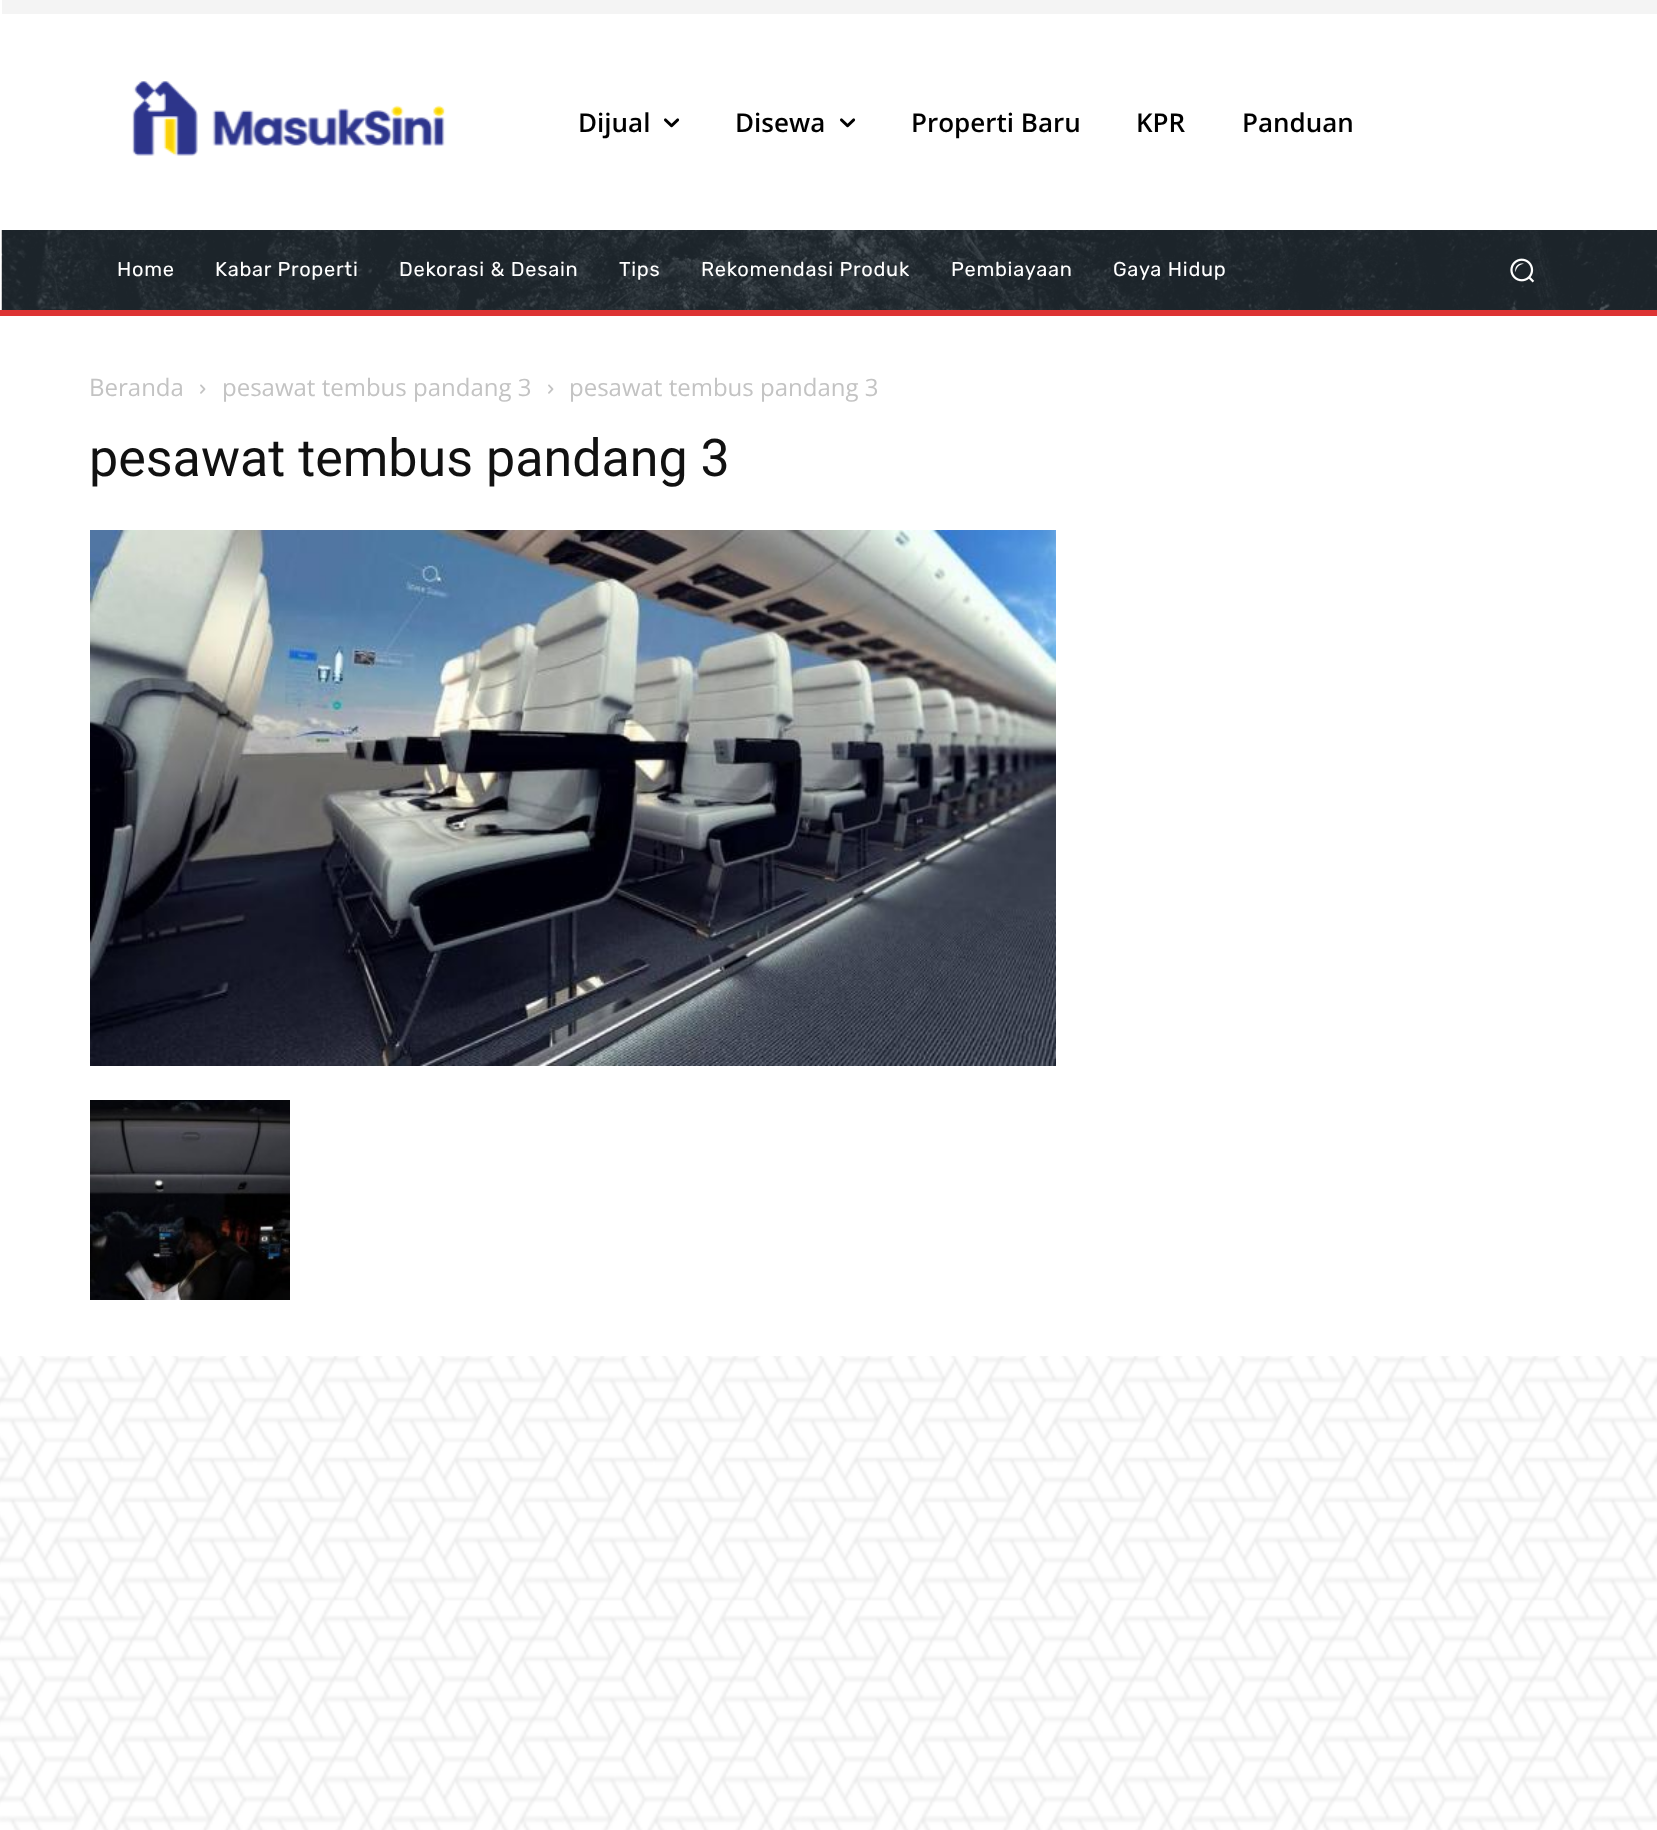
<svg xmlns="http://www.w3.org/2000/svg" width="1657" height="1830">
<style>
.a{font:600 26px Open Sans;fill:#000}
.b{font:20px Rubik;letter-spacing:0.75px;fill:#fff}
.c{font:24px Open Sans;fill:#c3c3c3}
.d{font:52px Roboto;fill:#111}
</style>
<rect width="100%" height="100%" fill="#fff"/>
<image href="1.png" x="0" y="1356" width="1657" height="474"/>
<path fill="#f4f4f4" d="M2 0h1655v14H2z"/>
<image href="2.png" x="132" y="81" width="314" height="75"/>
<image href="3.png" x="664" y="118" width="16" height="10"/>
<image href="3.png" x="840" y="118" width="16" height="10"/>
<path fill="#232d35" d="M2 230h1655v80H2z"/>
<image href="4.png" x="1" y="230" width="1656" height="80"/>
<image href="5.png" x="1510" y="258" width="25" height="25"/>
<path fill="#d33" d="M0 310h1657v6H0z"/>
<image href="6.png" x="200" y="384" width="6" height="10"/>
<image href="6.png" x="548" y="384" width="6" height="10"/>
<image href="7.png" x="90" y="530" width="966" height="536"/>
<image href="8.png" x="90" y="1100" width="200" height="200"/>
<text class="a" x="578" y="132">Dijual</text>
<text class="a" x="735" y="132">Disewa</text>
<text class="a" x="911" y="132">Properti Baru</text>
<text class="a" x="1136" y="132">KPR</text>
<text class="a" x="1242" y="132">Panduan</text>
<text class="b" x="117" y="276">Home</text>
<text class="b" x="215" y="276">Kabar Properti</text>
<text class="b" x="399" y="276">Dekorasi &amp; Desain</text>
<text class="b" x="619" y="276">Tips</text>
<text class="b" x="701" y="276">Rekomendasi Produk</text>
<text class="b" x="951" y="276">Pembiayaan</text>
<text class="b" x="1113" y="276">Gaya Hidup</text>
<text class="c" x="89" y="396">Beranda</text>
<text class="c" x="222" y="396">pesawat tembus pandang 3</text>
<text class="c" x="569" y="396">pesawat tembus pandang 3</text>
<text class="d" x="89" y="476">pesawat tembus pandang 3</text>
</svg>
